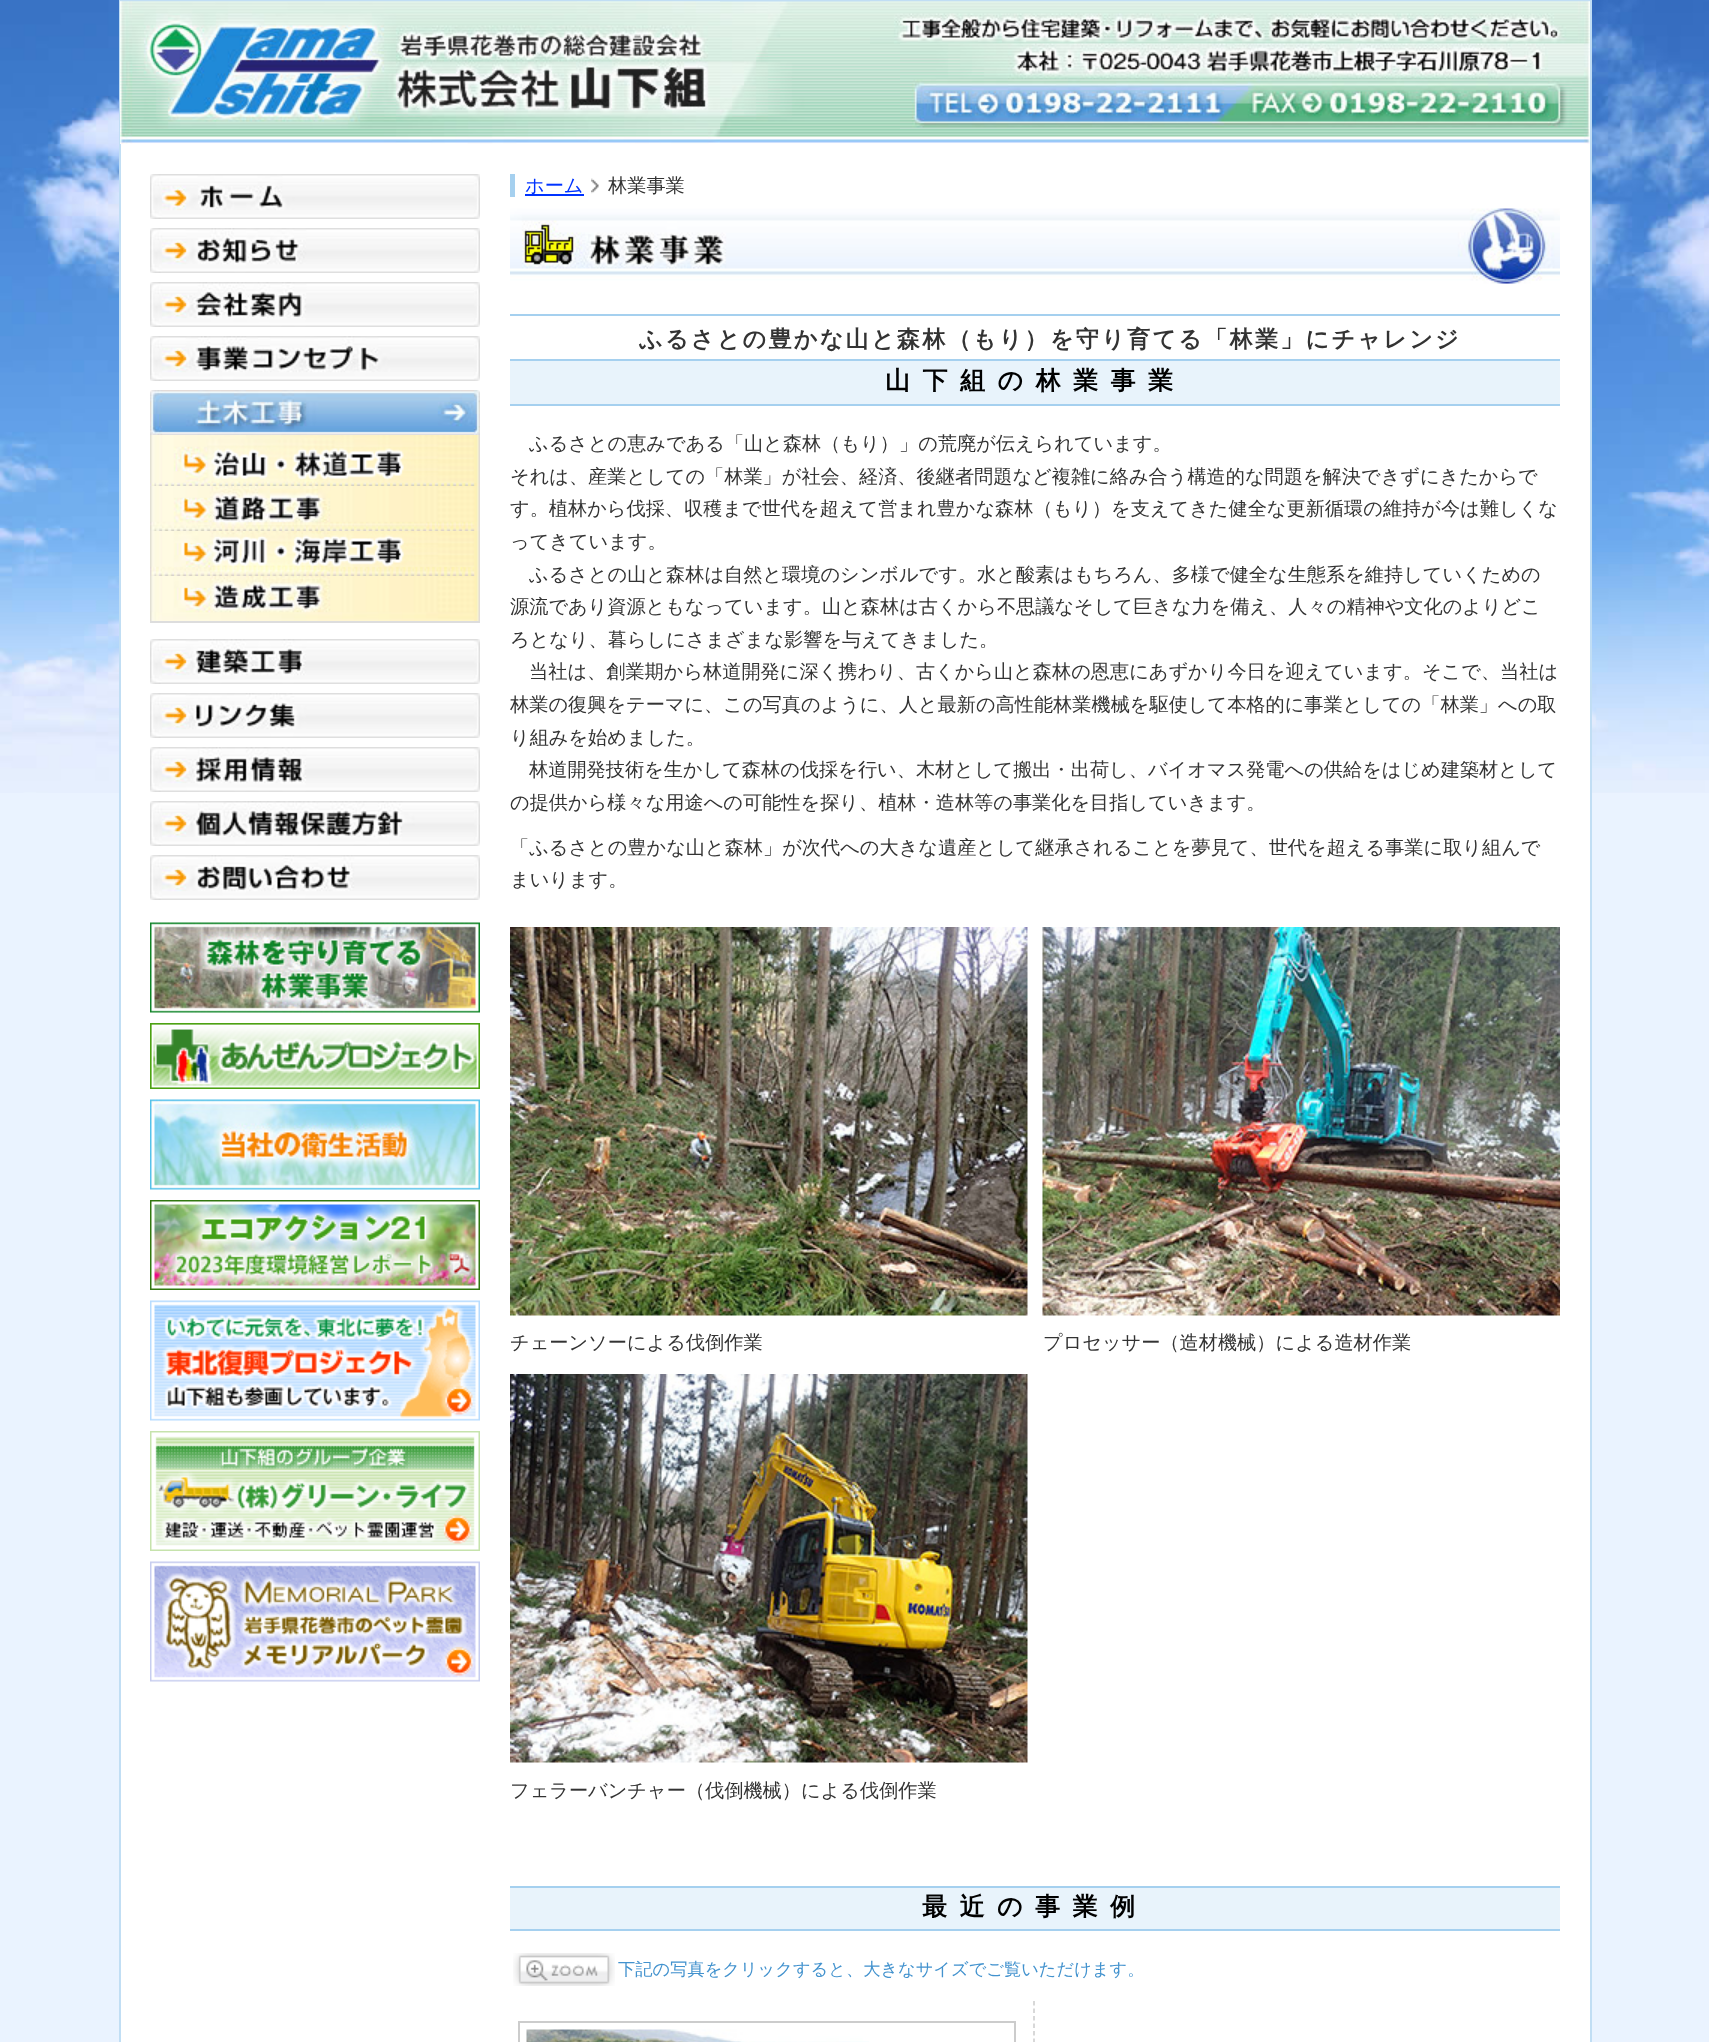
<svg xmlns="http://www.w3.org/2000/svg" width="1709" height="2042">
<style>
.a{font:500 19.2px WenQuanYi Zen Hei;fill:#03f}
.b{font:500 19.2px WenQuanYi Zen Hei;fill:#333}
.c{font:bold 23.05px WenQuanYi Zen Hei;letter-spacing:2.3px;fill:#333}
.d{font:bold 25px WenQuanYi Zen Hei;letter-spacing:12.5px;fill:#000}
.e{font:500 17.25px WenQuanYi Zen Hei;fill:#4292ce}
</style>
<rect width="100%" height="100%" fill="#eaf3ff"/>
<image href="1.png" x="0" y="0" width="1709" height="793"/>
<path fill="#fff" d="M121 144h1469v1898H121z"/>
<path fill="none" stroke="#c1def4" stroke-width="2" d="M120 1h1471v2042H120z"/>
<image href="2.png" x="120" y="1" width="1470" height="143"/>
<image href="3.png" x="120" y="1" width="600" height="128"/>
<image href="4.png" x="870" y="1" width="720" height="43"/>
<image href="5.png" x="900" y="43" width="690" height="37"/>
<image href="6.png" x="900" y="79" width="690" height="50"/>
<image href="7.png" x="150" y="174" width="330" height="45"/>
<image href="8.png" x="150" y="228" width="330" height="45"/>
<image href="9.png" x="150" y="282" width="330" height="45"/>
<image href="10.png" x="150" y="336" width="330" height="45"/>
<image href="11.png" x="150" y="390" width="330" height="45"/>
<path fill="#ddd" d="M150 621h330v2H150z"/>
<image href="12.png" x="150" y="435" width="330" height="51"/>
<image href="13.png" x="150" y="486" width="330" height="45"/>
<image href="14.png" x="150" y="531" width="330" height="45"/>
<image href="15.png" x="150" y="576" width="330" height="45"/>
<image href="16.png" x="150" y="639" width="330" height="45"/>
<image href="17.png" x="150" y="693" width="330" height="45"/>
<image href="18.png" x="150" y="747" width="330" height="45"/>
<image href="19.png" x="150" y="801" width="330" height="45"/>
<image href="20.png" x="150" y="855" width="330" height="45"/>
<image href="21.png" x="150" y="922" width="330" height="91"/>
<image href="22.png" x="150" y="1023" width="330" height="66"/>
<image href="23.png" x="150" y="1099" width="330" height="91"/>
<image href="24.png" x="150" y="1200" width="330" height="90"/>
<image href="25.png" x="150" y="1300" width="330" height="121"/>
<image href="26.png" x="150" y="1431" width="330" height="120"/>
<image href="27.png" x="150" y="1561" width="330" height="121"/>
<path fill="#a5d0ef" d="M510 174h5v23H510z"/>
<path fill="#03f" d="M525 194h59v2H525z"/>
<image href="28.png" x="591" y="178" width="8" height="16"/>
<image href="29.png" x="510" y="208" width="1050" height="76"/>
<path fill="#a5d0ef" d="M510 314h1050v2H510z"/>
<path fill="#e8f3fb" d="M510 361h1050v43H510z"/>
<path fill="#a5d0ef" d="M510 359h1050v2H510z"/>
<path fill="#a5d0ef" d="M510 404h1050v2H510z"/>
<image href="30.png" x="510" y="927" width="518" height="389"/>
<image href="31.png" x="1042" y="927" width="518" height="389"/>
<image href="32.png" x="510" y="1374" width="518" height="389"/>
<path fill="#e8f3fb" d="M510 1888h1050v41H510z"/>
<path fill="#a5d0ef" d="M510 1886h1050v2H510z"/>
<path fill="#a5d0ef" d="M510 1929h1050v2H510z"/>
<image href="33.png" x="513" y="1953" width="102" height="33"/>
<path fill="none" stroke="#ccc" stroke-width="1.5" stroke-dasharray="4.5 3" d="M1034 2001v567"/>
<path fill="none" stroke="#ccc" stroke-width="2" d="M519 2022h496v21H519z"/>
<image href="34.png" x="526" y="2029" width="343" height="13"/>
<text class="a" x="525" y="192">ホーム</text>
<text class="b" x="608" y="192">林業事業</text>
<text class="c" x="639" y="347">ふるさとの豊かな山と森林（もり）を守り育てる「林業」にチャレンジ</text>
<text class="d" x="885" y="389">山下組の林業事業</text>
<text class="b" x="529" y="450">ふるさとの恵みである「山と森林（もり）」の荒廃が伝えられています。</text>
<text class="b" x="510" y="483">それは、産業としての「林業」が社会、経済、後継者問題など複雑に絡み合う構造的な問題を解決できずにきたからで</text>
<text class="b" x="510" y="515">す。植林から伐採、収穫まで世代を超えて営まれ豊かな森林（もり）を支えてきた健全な更新循環の維持が今は難しくな</text>
<text class="b" x="510" y="548">ってきています。</text>
<text class="b" x="529" y="581">ふるさとの山と森林は自然と環境のシンボルです。水と酸素はもちろん、多様で健全な生態系を維持していくための</text>
<text class="b" x="510" y="613">源流であり資源ともなっています。山と森林は古くから不思議なそして巨きな力を備え、人々の精神や文化のよりどこ</text>
<text class="b" x="510" y="646">ろとなり、暮らしにさまざまな影響を与えてきました。</text>
<text class="b" x="529" y="678">当社は、創業期から林道開発に深く携わり、古くから山と森林の恩恵にあずかり今日を迎えています。そこで、当社は</text>
<text class="b" x="510" y="711">林業の復興をテーマに、この写真のように、人と最新の高性能林業機械を駆使して本格的に事業としての「林業」への取</text>
<text class="b" x="510" y="744">り組みを始めました。</text>
<text class="b" x="529" y="776">林道開発技術を生かして森林の伐採を行い、木材として搬出・出荷し、バイオマス発電への供給をはじめ建築材として</text>
<text class="b" x="510" y="809">の提供から様々な用途への可能性を探り、植林・造林等の事業化を目指していきます。</text>
<text class="b" x="510" y="854">「ふるさとの豊かな山と森林」が次代への大きな遺産として継承されることを夢見て、世代を超える事業に取り組んで</text>
<text class="b" x="510" y="886">まいります。</text>
<text class="b" x="510" y="1349">チェーンソーによる伐倒作業</text>
<text class="b" x="1043" y="1349">プロセッサー（造材機械）による造材作業</text>
<text class="b" x="510" y="1797">フェラーバンチャー（伐倒機械）による伐倒作業</text>
<text class="d" x="922" y="1915">最近の事業例</text>
<text class="e" x="618" y="1975">下記の写真をクリックすると、大きなサイズでご覧いただけます。</text>
</svg>
